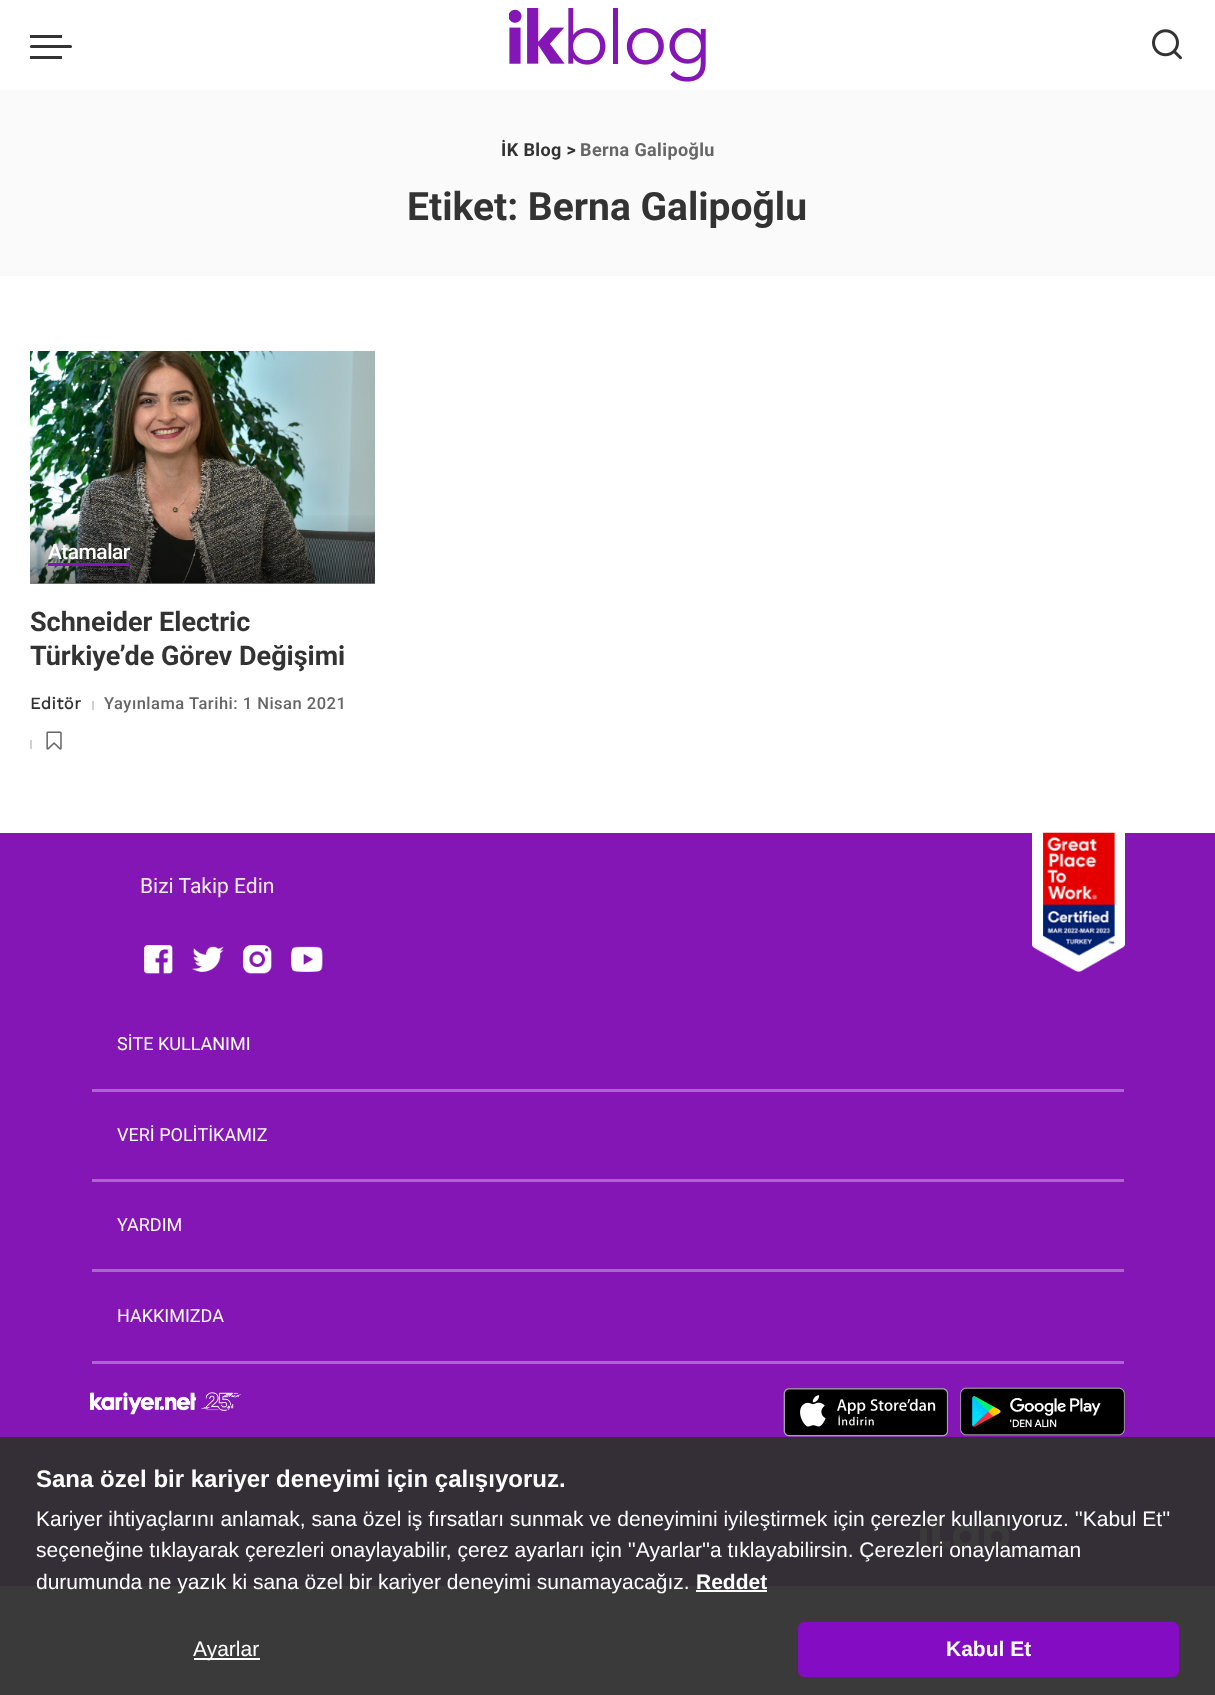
<svg xmlns="http://www.w3.org/2000/svg" width="1215" height="1695">
<style>
.a{font:bold 18px Roboto;letter-spacing:0.4px;fill:#333}
.b{font:bold 18px Roboto;letter-spacing:0.4px;fill:#666}
.c{font:bold 39px Roboto;fill:#333}
.d{font:500 21px Roboto;letter-spacing:-0.5px;fill:#fff}
.e{font:bold 27px Roboto;fill:#333}
.f{font:bold 16.5px Work Sans;letter-spacing:0.5px;fill:#333}
.g{font:500 16.5px Roboto;letter-spacing:0.5px;fill:#666}
.h{font:21px Roboto;fill:#efefef}
.i{font:18px Roboto;fill:#fff}
.j{font:bold 24px Liberation Sans;fill:#fff}
.k{font:21px Liberation Sans;fill:#fff}
.l{font:bold 21px Liberation Sans;fill:#fff}
</style>
<defs>
<linearGradient id="g1" gradientUnits="userSpaceOnUse" x1="203" y1="512" x2="203" y2="584"><stop offset="0" stop-color="#000" stop-opacity="0"/><stop offset="1" stop-color="#000" stop-opacity="0.5"/></linearGradient>
</defs>
<rect width="100%" height="100%" fill="#fff"/>
<path fill="#fafafa" d="M0 90h1215v186H0z"/>
<rect fill="#333" x="30" y="45" width="42" height="3" rx="1.5"/>
<path fill="#333" d="M30 35h32v3H30z"/>
<path fill="#333" d="M30 56h32v3H30z"/>
<image href="1.png" x="509" y="8" width="197" height="74"/>
<image href="2.png" x="1152" y="29" width="30" height="31"/>
<image href="3.png" x="30" y="351" width="345" height="233"/>
<path fill="url(#g1)" d="M30 515h345v69H30z"/>
<path fill="#8316b5" d="M48 563h81v3H48z"/>
<path fill="#d1d1d1" d="M92 701h2v9H92z"/>
<path fill="#d1d1d1" d="M30 740h2v9H30z"/>
<image href="4.png" x="46" y="731" width="16" height="19"/>
<path fill="#8316b5" d="M0 833h1215v753H0z"/>
<image href="5.png" x="144" y="945" width="29" height="29"/>
<image href="6.png" x="192" y="946" width="32" height="26"/>
<image href="7.png" x="243" y="945" width="29" height="29"/>
<image href="8.png" x="291" y="946" width="32" height="26"/>
<image href="9.png" x="1032" y="832" width="93" height="140"/>
<path fill="#ad65ce" d="M92 1089h1032v3H92z"/>
<path fill="#ad65ce" d="M92 1179h1032v3H92z"/>
<path fill="#ad65ce" d="M92 1269h1032v3H92z"/>
<path fill="#ad65ce" d="M92 1361h1032v3H92z"/>
<image href="10.png" x="90" y="1392" width="151" height="23"/>
<image href="11.png" x="783" y="1388" width="165" height="49"/>
<image href="12.png" x="960" y="1387" width="165" height="49"/>
<image href="13.png" x="920" y="1517" width="90" height="33"/>
<path fill="#2f2f2ff2" d="M0 1437h1215v258H0z"/>
<path fill="#fff" d="M696 1590h71v2H696z"/>
<path fill="#fff" d="M194 1658h66v2H194z"/>
<rect fill="#840dc3" x="798" y="1622" width="381" height="55" rx="6"/>
<text class="a" x="501" y="156">İK Blog &gt;</text>
<text class="b" x="580" y="156">Berna Galipoğlu</text>
<text class="c" x="407" y="220">Etiket: Berna Galipoğlu</text>
<text class="d" x="48" y="559">Atamalar</text>
<text class="e" x="30" y="631">Schneider Electric</text>
<text class="e" x="30" y="665">Türkiye’de Görev Değişimi</text>
<text class="f" x="30" y="709">Editör</text>
<text class="g" x="104" y="709">Yayınlama Tarihi: 1 Nisan 2021</text>
<text class="h" x="140" y="893">Bizi Takip Edin</text>
<text class="i" x="117" y="1050">SİTE KULLANIMI</text>
<text class="i" x="117" y="1141">VERİ POLİTİKAMIZ</text>
<text class="i" x="117" y="1231">YARDIM</text>
<text class="i" x="117" y="1322">HAKKIMIZDA</text>
<text class="j" x="36" y="1487">Sana özel bir kariyer deneyimi için çalışıyoruz.</text>
<text class="k" x="36" y="1526">Kariyer ihtiyaçlarını anlamak, sana özel iş fırsatları sunmak ve deneyimini iyileştirmek için çerezler kullanıyoruz. ''Kabul Et''</text>
<text class="k" x="36" y="1557">seçeneğine tıklayarak çerezleri onaylayabilir, çerez ayarları için ''Ayarlar''a tıklayabilirsin. Çerezleri onaylamaman</text>
<text class="k" x="36" y="1589">durumunda ne yazık ki sana özel bir kariyer deneyimi sunamayacağız.</text>
<text class="l" x="696" y="1589">Reddet</text>
<text class="k" x="193" y="1656">Ayarlar</text>
<text class="l" x="946" y="1656">Kabul Et</text>
</svg>
